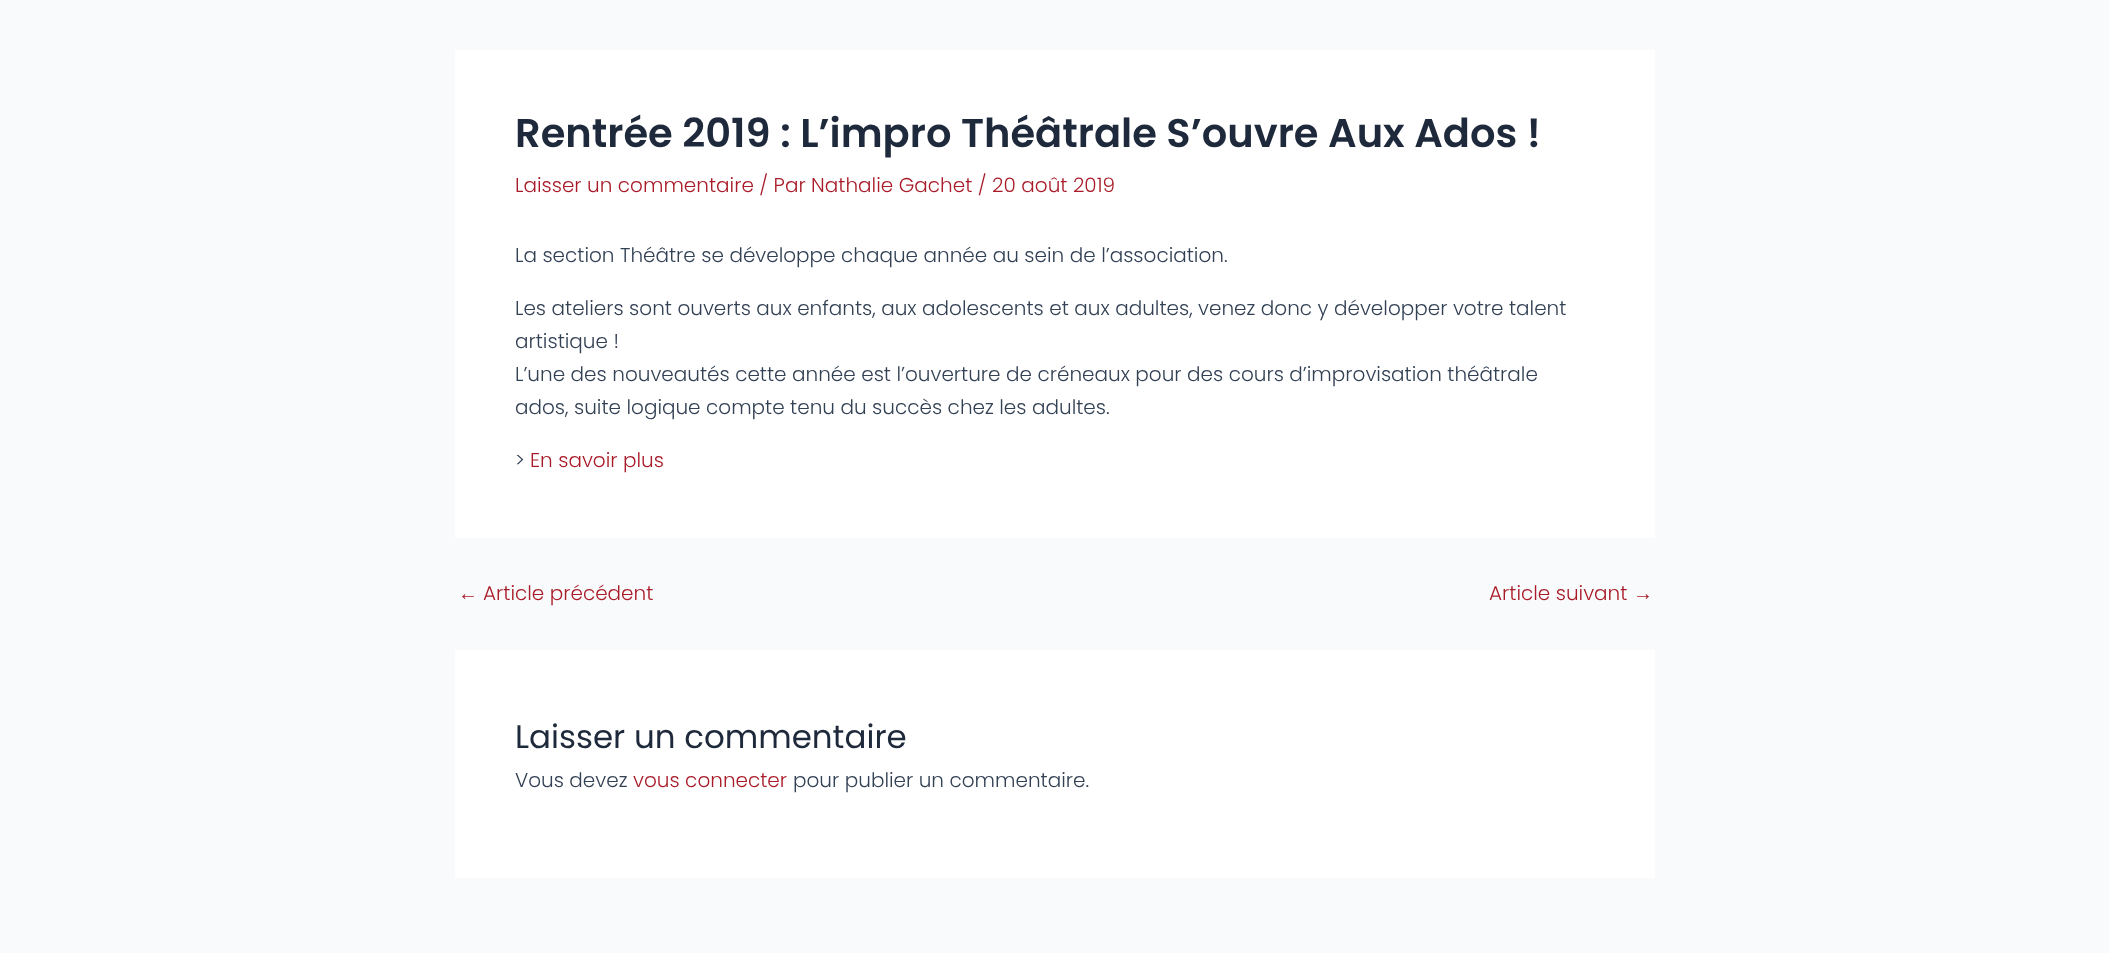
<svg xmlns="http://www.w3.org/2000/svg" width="2109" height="953">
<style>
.a{font:600 40px Poppins;fill:#1e293b}
.b{font:300 20px Poppins;fill:#a91b28}
.c{font:300 20px Poppins;fill:#334155}
.d{font:20px Liberation Sans;fill:#a91b28}
.e{font:32.5px Poppins;fill:#1e293b}
</style>
<rect width="100%" height="100%" fill="#f9fafb"/>
<path fill="#fff" d="M455 50h1200v488H455z"/>
<path fill="#fff" d="M455 650h1200v228H455z"/>
<text class="a" x="515" y="147">Rentrée 2019 : L’impro Théâtrale S’ouvre Aux Ados !</text>
<text class="b" x="515" y="192">Laisser un commentaire / Par Nathalie Gachet / 20 août 2019</text>
<text class="c" x="515" y="262">La section Théâtre se développe chaque année au sein de l’association.</text>
<text class="c" x="515" y="315">Les ateliers sont ouverts aux enfants, aux adolescents et aux adultes, venez donc y développer votre talent</text>
<text class="c" x="515" y="348">artistique !</text>
<text class="c" x="515" y="381">L’une des nouveautés cette année est l’ouverture de créneaux pour des cours d’improvisation théâtrale</text>
<text class="c" x="515" y="414">ados, suite logique compte tenu du succès chez les adultes.</text>
<text class="c" x="515" y="467">&gt;</text>
<text class="b" x="530" y="467">En savoir plus</text>
<text class="d" x="458" y="600">←</text>
<text class="b" x="483" y="600">Article précédent</text>
<text class="b" x="1489" y="600">Article suivant</text>
<text class="d" x="1633" y="600">→</text>
<text class="e" x="515" y="748">Laisser un commentaire</text>
<text class="c" x="515" y="787">Vous devez</text>
<text class="b" x="633" y="787">vous connecter</text>
<text class="c" x="793" y="787">pour publier un commentaire.</text>
</svg>
